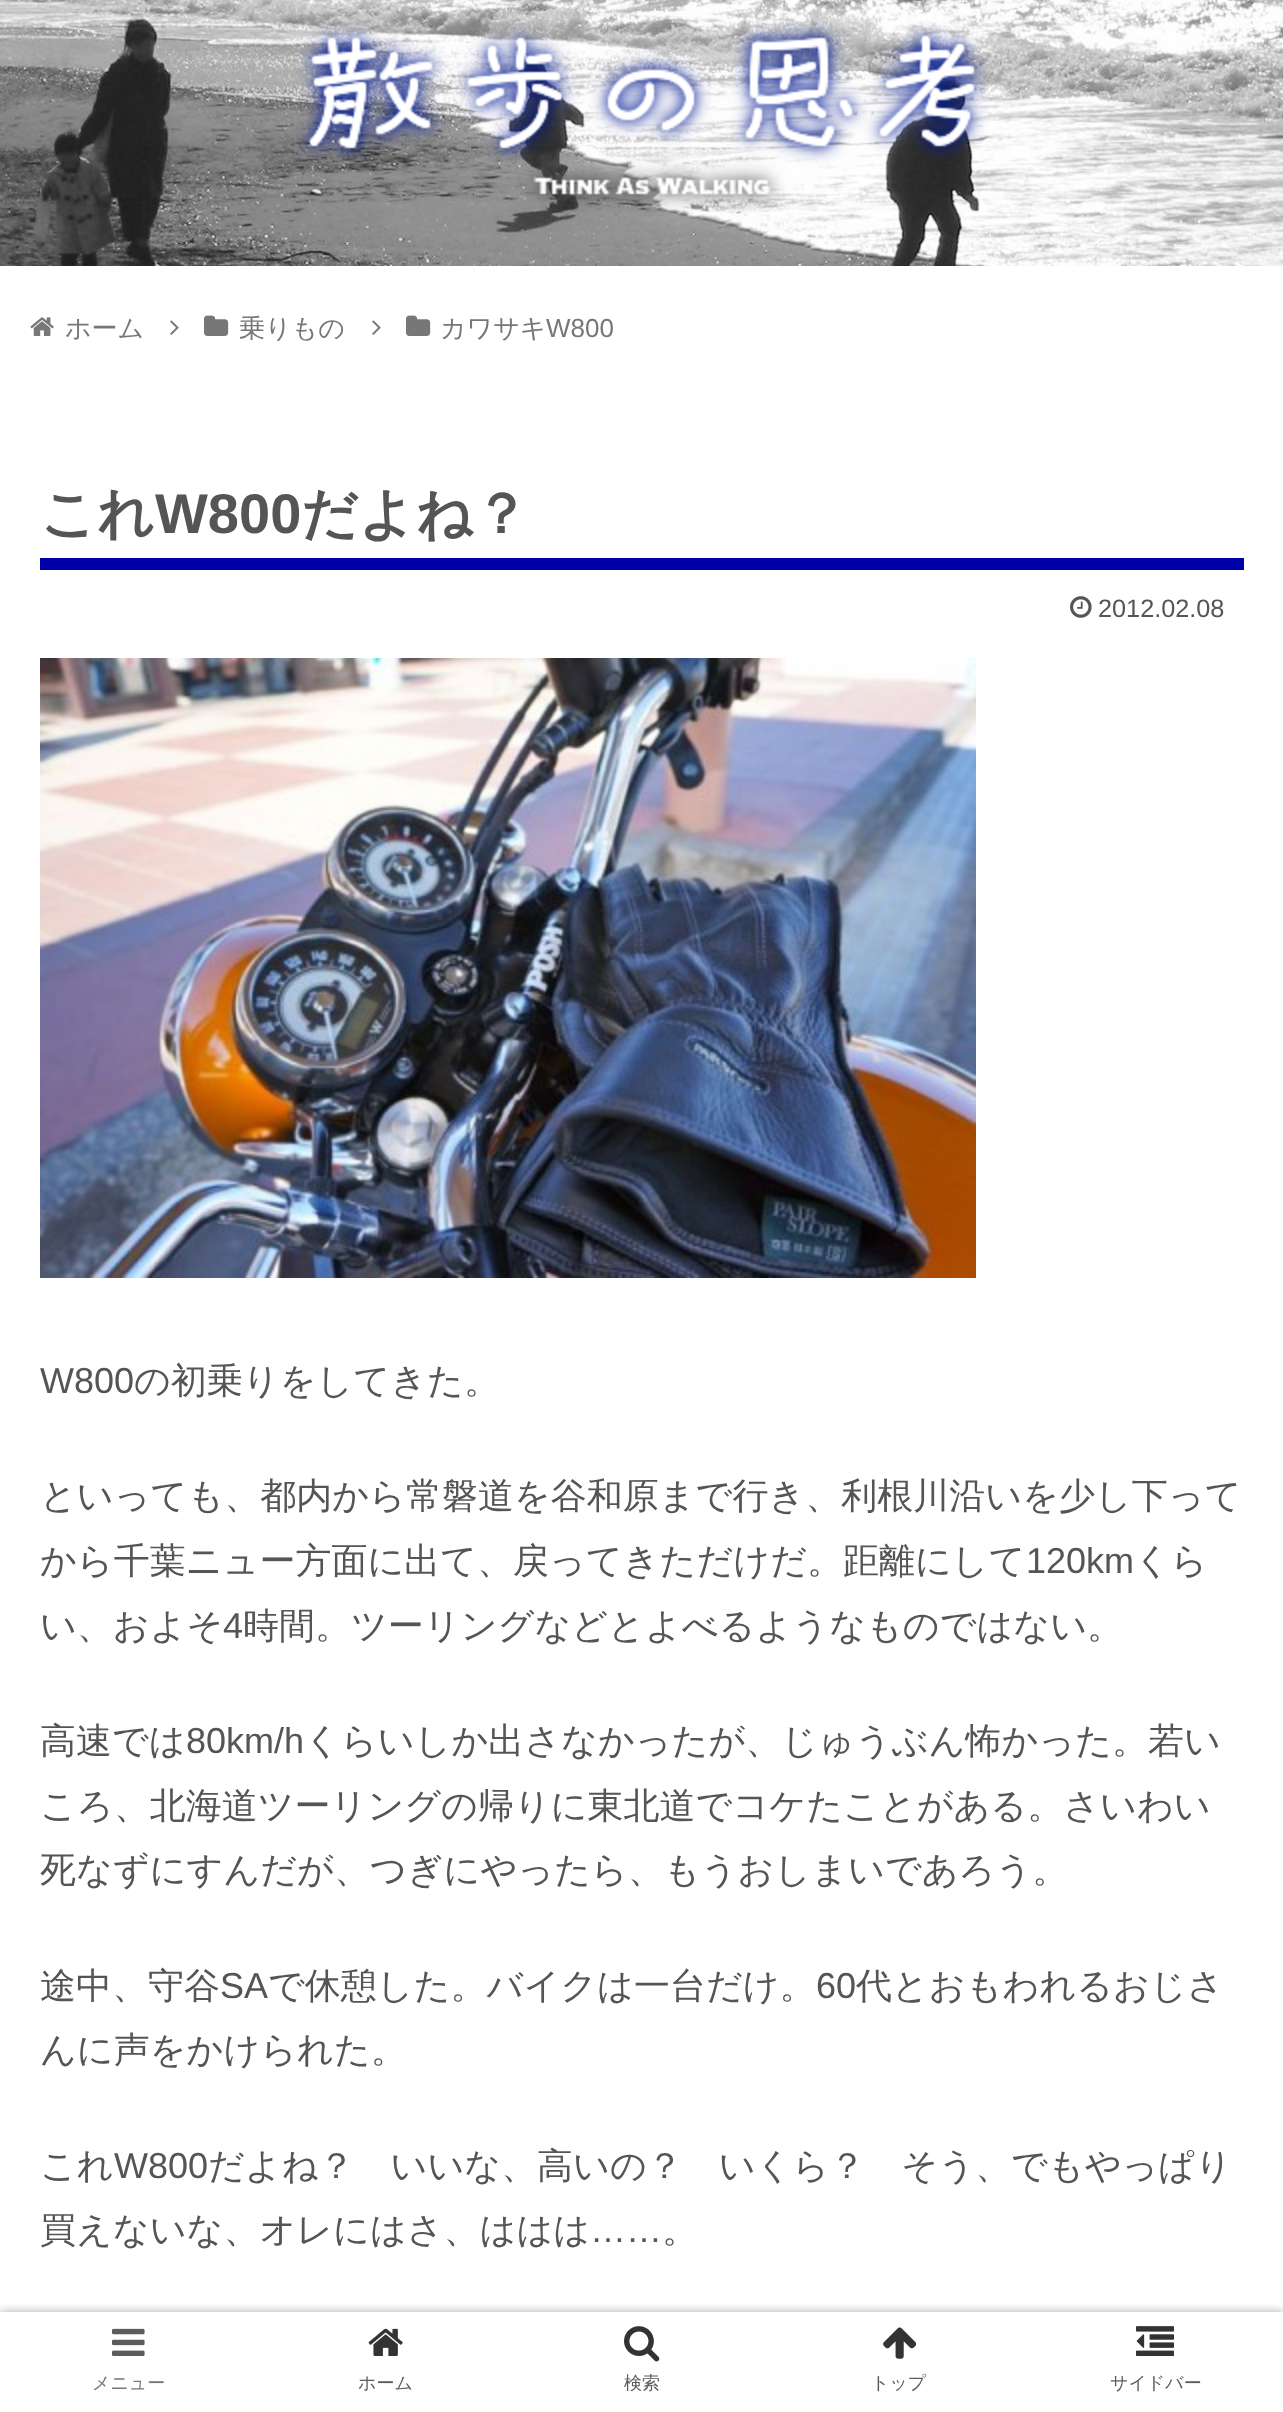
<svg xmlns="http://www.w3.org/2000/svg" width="1283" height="2412">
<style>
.a{font:500 26px WenQuanYi Zen Hei;fill:#777}
.b{font:26px Liberation Sans;fill:#777}
.c{font:bold 56px WenQuanYi Zen Hei;fill:#555}
.d{font:bold 56px Liberation Sans;fill:#555}
.e{font:25.25px Liberation Sans;fill:#555}
.f{font:36px Liberation Sans;fill:#555}
.g{font:500 36px WenQuanYi Zen Hei;fill:#555}
.h{font:500 18px WenQuanYi Zen Hei;fill:#777}
.i{font:500 18px WenQuanYi Zen Hei;fill:#5c5c5c}
</style>
<rect width="100%" height="100%" fill="#fff"/>
<image href="1.png" x="0" y="0" width="1283" height="266"/>
<image href="2.png" x="296" y="20" width="693" height="192"/>
<image href="3.png" x="30" y="317" width="24" height="19"/>
<image href="4.png" x="170" y="320" width="9" height="15"/>
<image href="5.png" x="204" y="315" width="25" height="21"/>
<image href="4.png" x="372" y="320" width="9" height="15"/>
<image href="5.png" x="406" y="315" width="25" height="21"/>
<path fill="#00a" d="M40 558h1204v12H40z"/>
<image href="6.png" x="1070" y="596" width="22" height="22"/>
<image href="7.png" x="40" y="658" width="936" height="620"/>
<path fill="#a9a9a9" filter="blur(5px)" d="M0 2312h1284v100H0z"/>
<path fill="#fff" d="M0 2312h1283v100H0z"/>
<image href="8.png" x="112" y="2328" width="33" height="28"/>
<image href="9.png" x="368" y="2328" width="35" height="28"/>
<image href="10.png" x="624" y="2326" width="36" height="36"/>
<image href="11.png" x="883" y="2327" width="34" height="32"/>
<image href="12.png" x="1136" y="2326" width="38" height="30"/>
<text class="a" x="65" y="337">ホーム</text>
<text class="a" x="239" y="337">乗りもの</text>
<text class="a" x="440" y="337">カワサキ</text>
<text class="b" x="546" y="337">W800</text>
<text class="c" x="40" y="533">これ</text>
<text class="d" x="155" y="533">W800</text>
<text class="c" x="301" y="533">だよね？</text>
<text class="e" x="1098" y="617">2012.02.08</text>
<text class="f" x="40" y="1393">W800</text>
<text class="g" x="134" y="1393">の初乗りをしてきた。</text>
<text class="g" x="40" y="1508">といっても、都内から常磐道を谷和原まで行き、利根川沿いを少し下って</text>
<text class="g" x="40" y="1573">から千葉ニュー方面に出て、戻ってきただけだ。距離にして</text>
<text class="f" x="1026" y="1573">120km</text>
<text class="g" x="1134" y="1573">くら</text>
<text class="g" x="40" y="1638">い、およそ</text>
<text class="f" x="223" y="1638">4</text>
<text class="g" x="243" y="1638">時間。ツーリングなどとよべるようなものではない。</text>
<text class="g" x="40" y="1753">高速では</text>
<text class="f" x="186" y="1753">80km/h</text>
<text class="g" x="304" y="1753">くらいしか出さなかったが、じゅうぶん怖かった。若い</text>
<text class="g" x="40" y="1818">ころ、北海道ツーリングの帰りに東北道でコケたことがある。さいわい</text>
<text class="g" x="40" y="1882">死なずにすんだが、つぎにやったら、もうおしまいであろう。</text>
<text class="g" x="40" y="1998">途中、守谷</text>
<text class="f" x="220" y="1998">SA</text>
<text class="g" x="268" y="1998">で休憩した。バイクは一台だけ。</text>
<text class="f" x="816" y="1998">60</text>
<text class="g" x="856" y="1998">代とおもわれるおじさ</text>
<text class="g" x="40" y="2062">んに声をかけられた。</text>
<text class="g" x="40" y="2178">これ</text>
<text class="f" x="114" y="2178">W800</text>
<text class="g" x="208" y="2178">だよね？　いいな、高いの？　いくら？　そう、でもやっぱり</text>
<text class="g" x="40" y="2242">買えないな、オレにはさ、ははは</text>
<text class="f" x="590" y="2242">……</text>
<text class="g" x="662" y="2242">。</text>
<text class="h" x="92" y="2389">メニュー</text>
<text class="i" x="358" y="2389">ホーム</text>
<text class="i" x="624" y="2389">検索</text>
<text class="i" x="871" y="2389">トップ</text>
<text class="i" x="1110" y="2389">サイドバー</text>
</svg>
